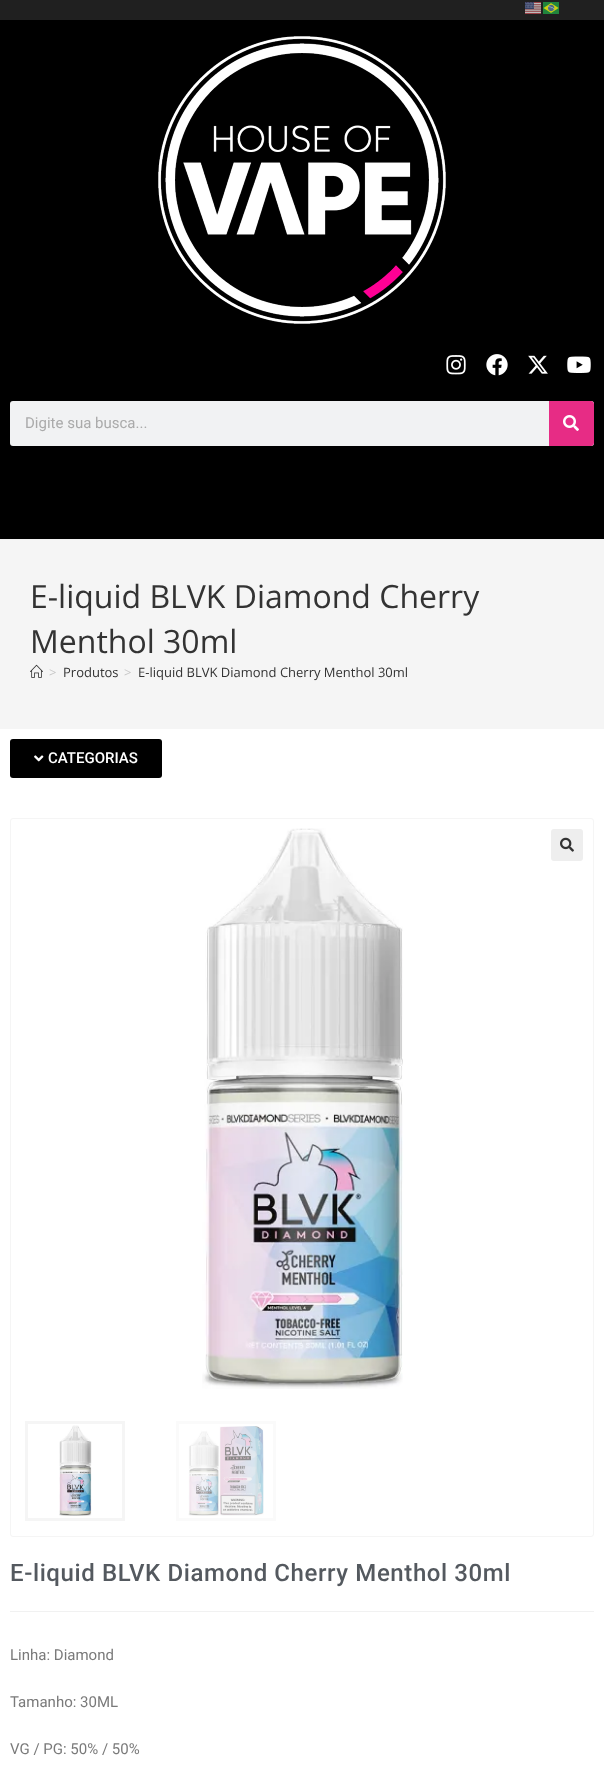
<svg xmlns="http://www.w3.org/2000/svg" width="604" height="1788">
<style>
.a{font:15px Roboto;fill:#aaa}
.b{font:32px Open Sans;fill:#333}
.c{font:13px Open Sans;fill:#c6c6c6}
.d{font:13px Open Sans;fill:#333}
.e{font:500 15px Roboto;fill:#fff}
.f{font:500 24px Roboto;letter-spacing:0.6px;fill:#54595f}
.g{font:15px Roboto;fill:#7a7a7a}
</style>
<rect width="100%" height="100%" fill="#fff"/>
<path fill="#f1f1f1" d="M0 539h604v1H0z"/>
<path fill="#202020" d="M0 0h604v20H0z"/>
<image href="1.png" x="525" y="2" width="16" height="12"/>
<image href="2.png" x="543" y="2" width="16" height="12"/>
<path fill="#000" d="M0 20h604v519H0z"/>
<image href="3.png" x="158" y="36" width="288" height="288"/>
<image href="4.png" x="446" y="355" width="20" height="20"/>
<image href="5.png" x="486" y="354" width="22" height="22"/>
<image href="6.png" x="528" y="355" width="20" height="19"/>
<image href="7.png" x="567" y="356" width="24" height="17"/>
<rect fill="#f1f2f3" x="10" y="401" width="584" height="45" rx="3"/>
<path fill="#e72c85" d="M549 401h42c1.5 0 3 1.5 3 3v39c0 1.5-1.5 3-3 3h-42z"/>
<image href="8.png" x="563" y="415" width="16" height="16"/>
<path fill="#f5f5f5" d="M0 540h604v189H0z"/>
<image href="9.png" x="30" y="664" width="13" height="14"/>
<rect fill="#000" x="10" y="739" width="152" height="39" rx="3"/>
<image href="10.png" x="34" y="755" width="10" height="7"/>
<rect fill="none" stroke="#f5f5f5" x="10.5" y="818.5" width="583" height="718" rx="2.5"/>
<image href="11.png" x="202" y="828" width="201" height="561"/>
<rect fill="#eee" x="551" y="829" width="32" height="32" rx="3"/>
<image href="12.png" x="560" y="837" width="14" height="15"/>
<path fill="none" stroke="#f5f5f5" stroke-width="3" d="M26.5 1422.5h97v97H26.5z"/>
<image href="13.png" x="59" y="1425" width="33" height="91"/>
<path fill="none" stroke="#fafafa" stroke-width="3" d="M177.5 1422.5h97v97H177.5z"/>
<image href="14.png" x="188" y="1426" width="76" height="90"/>
<path fill="#f1f1f1" d="M10 1611h584v1H10z"/>
<text class="a" x="25" y="428">Digite sua busca...</text>
<text class="b" x="30" y="608">E-liquid BLVK Diamond Cherry</text>
<text class="b" x="30" y="653">Menthol 30ml</text>
<text class="c" x="49" y="677">&gt;</text>
<text class="d" x="63" y="677">Produtos</text>
<text class="c" x="124" y="677">&gt;</text>
<text class="d" x="138" y="677">E-liquid BLVK Diamond Cherry Menthol 30ml</text>
<text class="e" x="48" y="763">CATEGORIAS</text>
<text class="f" x="10" y="1581">E-liquid BLVK Diamond Cherry Menthol 30ml</text>
<text class="g" x="10" y="1660">Linha: Diamond</text>
<text class="g" x="10" y="1707">Tamanho: 30ML</text>
<text class="g" x="10" y="1754">VG / PG: 50% / 50%</text>
</svg>
